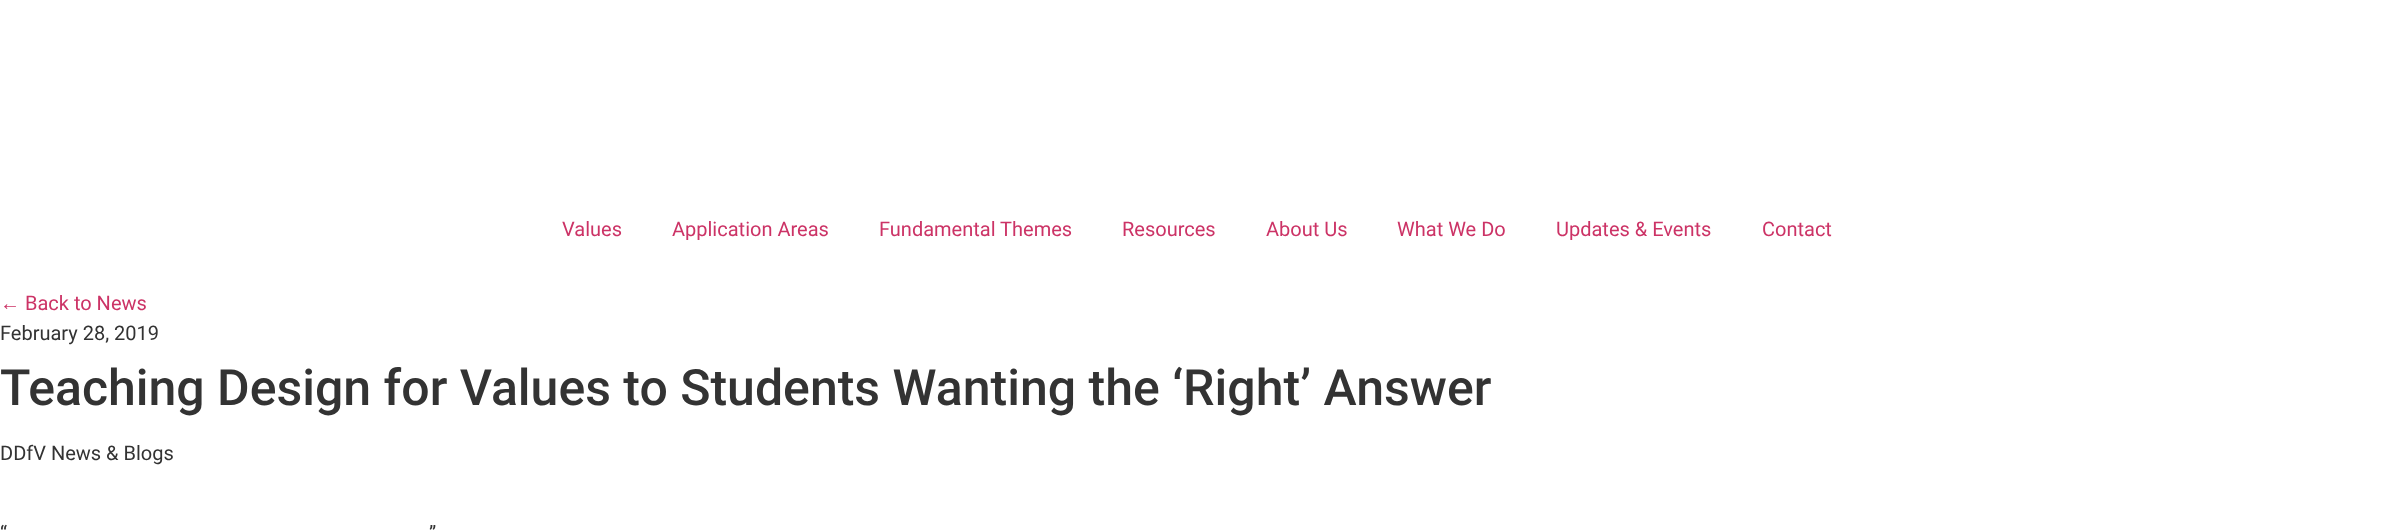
<svg xmlns="http://www.w3.org/2000/svg" width="2393" height="531">
<style>
.a{font:20px Roboto;fill:#c36}
.b{font:20px Liberation Sans;fill:#c36}
.c{font:20px Roboto;fill:#333}
.d{font:500 50px Roboto;fill:#333}
</style>
<rect width="100%" height="100%" fill="#fff"/>
<text class="a" x="562" y="236">Values</text>
<text class="a" x="672" y="236">Application Areas</text>
<text class="a" x="879" y="236">Fundamental Themes</text>
<text class="a" x="1122" y="236">Resources</text>
<text class="a" x="1266" y="236">About Us</text>
<text class="a" x="1397" y="236">What We Do</text>
<text class="a" x="1556" y="236">Updates &amp; Events</text>
<text class="a" x="1762" y="236">Contact</text>
<text class="b" x="0" y="310">←</text>
<text class="a" x="25" y="310">Back to News</text>
<text class="c" x="0" y="340">February 28, 2019</text>
<text class="d" x="0" y="405">Teaching Design for Values to Students Wanting the ‘Right’ Answer</text>
<text class="c" x="0" y="460">DDfV News &amp; Blogs</text>
<text class="c" x="0" y="540">“</text>
<text class="c" x="429" y="540">”</text>
</svg>
